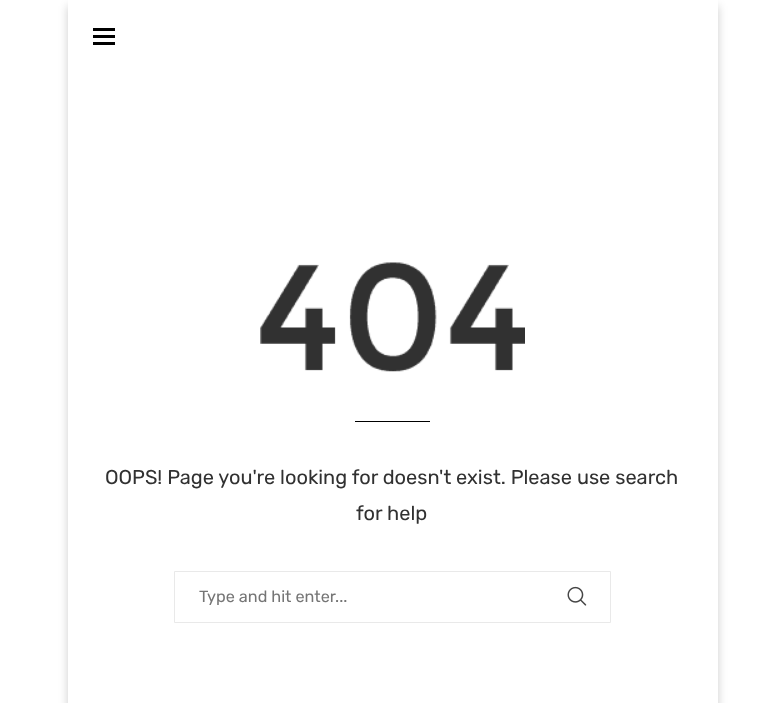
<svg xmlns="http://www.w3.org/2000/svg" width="783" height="703">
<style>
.a{font:20px Rubik;fill:#313131}
.b{font:16.25px Rubik;fill:#757575}
</style>
<rect width="100%" height="100%" fill="#fff"/>
<path fill="#00000033" filter="blur(5px)" d="M68 6h650v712H68z"/>
<path fill="#fff" d="M68 0h650v703H68z"/>
<path fill="#000" d="M93 28h22v3H93z"/>
<path fill="#000" d="M93 35h22v3H93z"/>
<path fill="#000" d="M93 42h22v3H93z"/>
<image href="1.png" x="260" y="262" width="265" height="110"/>
<path fill="#000" d="M355 421h75v1H355z"/>
<path fill="none" stroke="#e9e9e9" d="M174.5 571.5h436v51H174.5z"/>
<image href="2.png" x="567" y="586" width="20" height="20"/>
<text class="a" x="105" y="484">OOPS! Page you're looking for doesn't exist. Please use search</text>
<text class="a" x="356" y="520">for help</text>
<text class="b" x="199" y="602">Type and hit enter...</text>
</svg>
